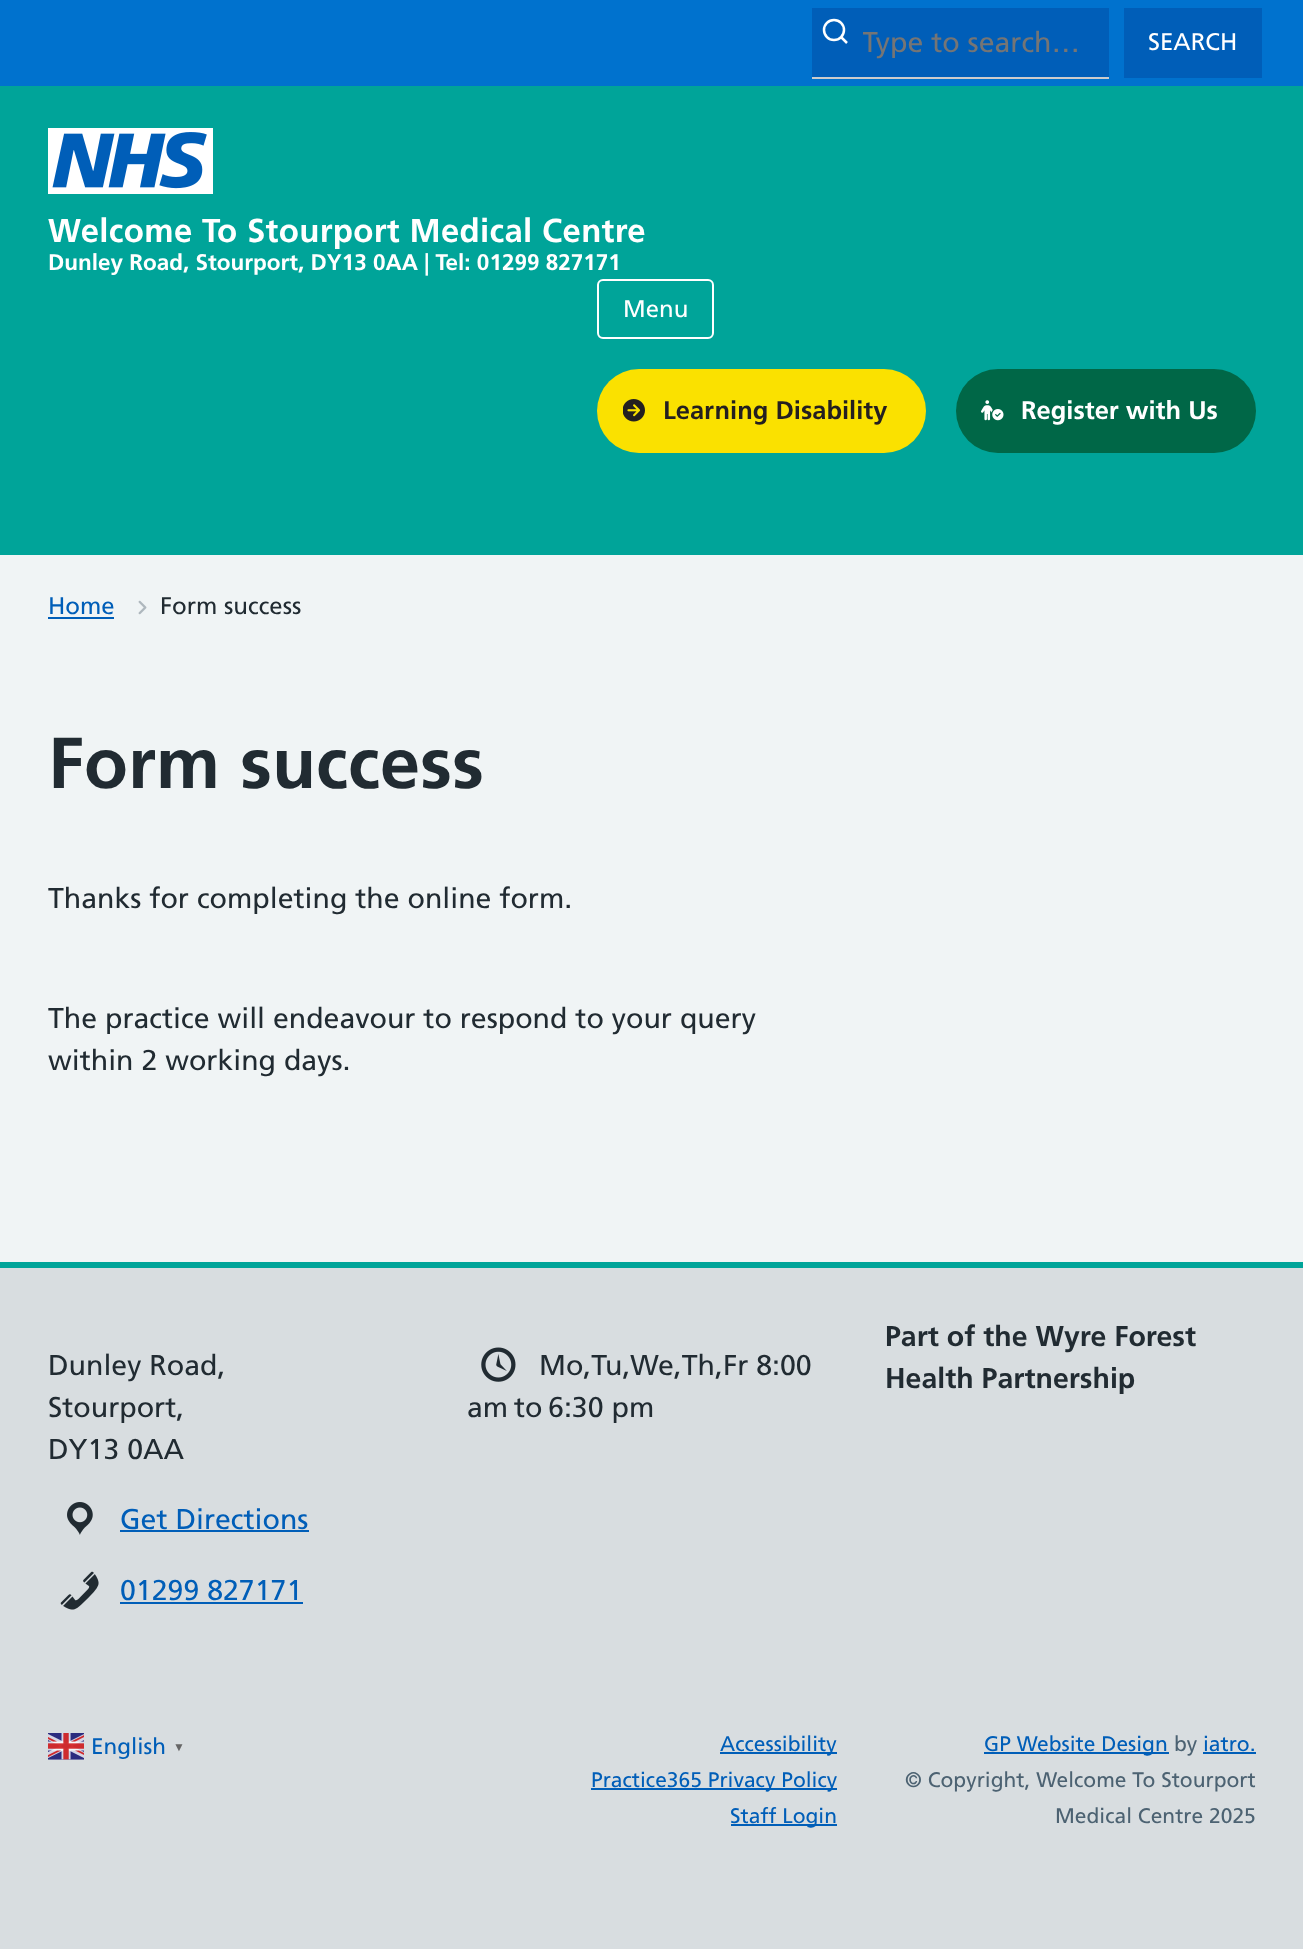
<svg xmlns="http://www.w3.org/2000/svg" width="1303" height="1949">
<style>
.a{font:28.5px Frutiger;fill:#757575}
.b{font:24px Frutiger;fill:#fff}
.c{font:bold 33px Frutiger;letter-spacing:0.3px;fill:#fff}
.d{font:bold 22.5px Frutiger;fill:#fff}
.e{font:bold 25.5px Frutiger;fill:#231f20}
.f{font:bold 25.5px Frutiger;fill:#fff}
.g{font:24px Frutiger;fill:#005eb8}
.h{font:24px Frutiger;fill:#212b32}
.i{font:bold 72px Frutiger;fill:#212b32}
.j{font:28.5px Frutiger;fill:#212b32}
.k{font:28.5px Frutiger;fill:#005eb8}
.l{font:bold 28.5px Frutiger;fill:#212b32}
.m{font:22.5px Frutiger;fill:#005eb8}
.n{font:bold 12px Liberation Sans;fill:#666}
.o{font:21px Frutiger;fill:#005eb8}
.p{font:21px Frutiger;fill:#4c6272}
</style>
<defs>
<clipPath id="clip1"><path d="M863 26h234v34H863z"/></clipPath>
</defs>
<rect width="100%" height="100%" fill="#d8dde0"/>
<path fill="#f0f4f5" d="M0 555h1303v707H0z"/>
<path fill="#00a499" d="M0 86h1303v469H0z"/>
<path fill="#0072ce" d="M0 0h1303v86H0z"/>
<path fill="#005eb8" d="M812 8h297v69H812z"/>
<path fill="#ccc" d="M812 77h297v2H812z"/>
<circle fill="none" stroke="#fff" stroke-width="2.5" cx="834" cy="30" r="10"/>
<path fill="none" stroke="#fff" stroke-width="2.5" d="M847 43l-5.5-5.5"/>
<path fill="#005eb8" d="M1124 8h138v70H1124z"/>
<image href="1.png" x="48" y="128" width="165" height="66"/>
<rect fill="none" stroke="#fff" stroke-width="2" x="598" y="280" width="115" height="58" rx="5"/>
<rect fill="#fae100" x="597" y="369" width="329" height="84" rx="42"/>
<image href="2.png" x="623" y="399" width="22" height="23"/>
<rect fill="#006747" x="956" y="369" width="300" height="84" rx="42"/>
<image href="3.png" x="981" y="400" width="23" height="21"/>
<path fill="#005eb8" d="M48 617h66v2H48z"/>
<image href="4.png" x="138" y="600" width="9" height="15"/>
<path fill="#00a499" d="M0 1262h1303v6H0z"/>
<image href="5.png" x="67" y="1502" width="26" height="33"/>
<path fill="#005eb8" d="M120 1530h189v2H120z"/>
<image href="6.png" x="60" y="1571" width="39" height="39"/>
<path fill="#005eb8" d="M120 1602h183v2H120z"/>
<image href="7.png" x="481" y="1347" width="35" height="35"/>
<image href="8.png" x="48" y="1733" width="36" height="27"/>
<path fill="#005eb8" d="M720 1752h117v2H720z"/>
<path fill="#005eb8" d="M591 1788h246v2H591z"/>
<path fill="#005eb8" d="M731 1824h106v2H731z"/>
<path fill="#005eb8" d="M984 1752h185v2H984z"/>
<path fill="#005eb8" d="M1203 1752h53v2H1203z"/>
<g clip-path="url(#clip1)">
<text class="a" x="862" y="52">Type to search…</text>
</g>
<text class="b" x="1148" y="50">SEARCH</text>
<text class="c" x="48" y="242">Welcome To Stourport Medical Centre</text>
<text class="d" x="48" y="270">Dunley Road, Stourport, DY13 0AA | Tel: 01299 827171</text>
<text class="b" x="623" y="317">Menu</text>
<text class="e" x="663" y="419">Learning Disability</text>
<text class="f" x="1021" y="419">Register with Us</text>
<text class="g" x="48" y="614">Home</text>
<text class="h" x="160" y="614">Form success</text>
<text class="i" x="48" y="788">Form success</text>
<text class="j" x="48" y="908">Thanks for completing the online form.</text>
<text class="j" x="48" y="1028">The practice will endeavour to respond to your query</text>
<text class="j" x="48" y="1070">within 2 working days.</text>
<text class="j" x="48" y="1375">Dunley Road,</text>
<text class="j" x="48" y="1417">Stourport,</text>
<text class="j" x="48" y="1459">DY13 0AA</text>
<text class="k" x="120" y="1529">Get Directions</text>
<text class="k" x="120" y="1600">01299 827171</text>
<text class="j" x="539" y="1375">Mo,Tu,We,Th,Fr 8:00</text>
<text class="j" x="467" y="1417">am to 6:30 pm</text>
<text class="l" x="885" y="1346">Part of the Wyre Forest</text>
<text class="l" x="885" y="1388">Health Partnership</text>
<text class="m" x="91" y="1754">English</text>
<text class="n" x="173" y="1751">▼</text>
<text class="o" x="720" y="1751">Accessibility</text>
<text class="o" x="591" y="1787">Practice365 Privacy Policy</text>
<text class="o" x="730" y="1823">Staff Login</text>
<text class="o" x="984" y="1751">GP Website Design</text>
<text class="p" x="1174" y="1751">by</text>
<text class="o" x="1203" y="1751">iatro.</text>
<text class="p" x="905" y="1787">© Copyright, Welcome To Stourport</text>
<text class="p" x="1055" y="1823">Medical Centre 2025</text>
</svg>
